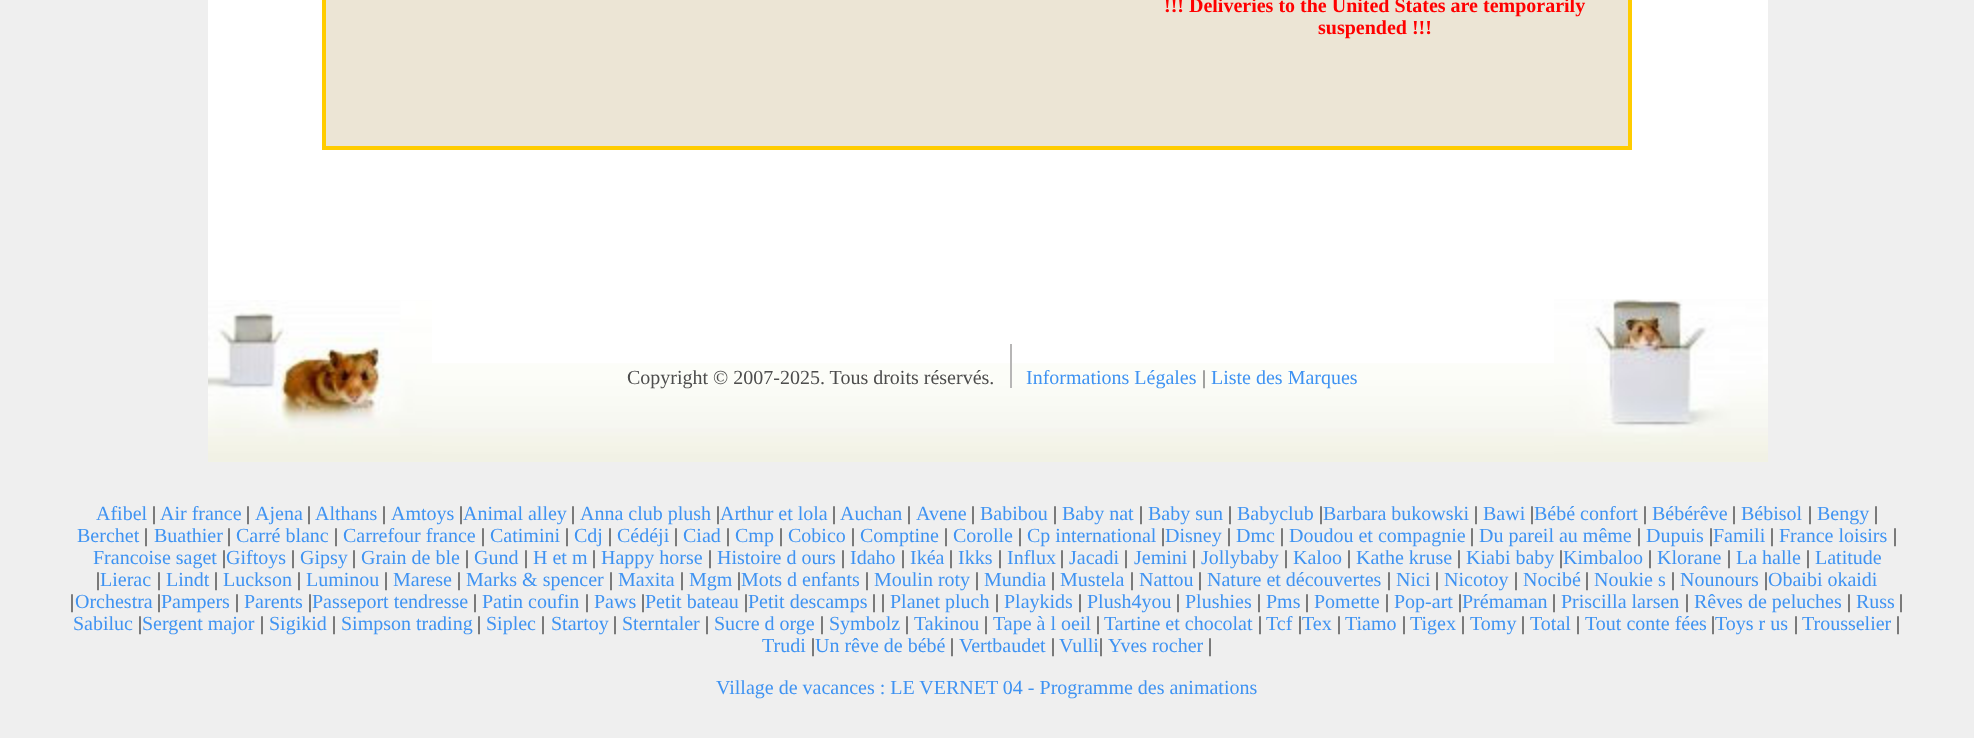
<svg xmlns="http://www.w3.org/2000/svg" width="1974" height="738">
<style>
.a{font:bold 20px Liberation Serif;fill:#f00}
.b{font:20px Liberation Serif;fill:#4d4d4d}
.c{font:20px Liberation Serif;fill:#3f93f2}
.d{font:20px Liberation Serif;fill:#000}
</style>
<rect width="100%" height="100%" fill="#efefef"/>
<path fill="#fff" d="M208 0h1560v363H208z"/>
<path fill="none" stroke="#fc0" stroke-width="2" d="M323 -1h1308v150H323z"/>
<path fill="none" stroke="#fc0" stroke-width="2" d="M325 -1h1304v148H325z"/>
<path fill="#ece5d5" d="M326 0h1302v146H326z"/>
<image href="1.png" x="208" y="300" width="224" height="162"/>
<image href="2.png" x="432" y="363" width="1122" height="99"/>
<path fill="#b7b6b6" d="M1010 344h2v44H1010z"/>
<image href="3.png" x="1554" y="299" width="214" height="163"/>
<text class="a" x="1164" y="12">!!! Deliveries to the United States are temporarily</text>
<text class="a" x="1318" y="34">suspended !!!</text>
<text class="b" x="627" y="384">Copyright © 2007-2025. Tous droits réservés.</text>
<text class="c" x="1026" y="384">Informations Légales</text>
<text class="b" x="1202" y="384">|</text>
<text class="c" x="1211" y="384">Liste des Marques</text>
<text class="c" x="96" y="520">Afibel</text>
<text class="d" x="152" y="520">|</text>
<text class="c" x="160" y="520">Air france</text>
<text class="d" x="246" y="520">|</text>
<text class="c" x="255" y="520">Ajena</text>
<text class="d" x="307" y="520">|</text>
<text class="c" x="315" y="520">Althans</text>
<text class="d" x="382" y="520">|</text>
<text class="c" x="391" y="520">Amtoys</text>
<text class="d" x="459" y="520">|</text>
<text class="c" x="463" y="520">Animal alley</text>
<text class="d" x="571" y="520">|</text>
<text class="c" x="580" y="520">Anna club plush</text>
<text class="d" x="716" y="520">|</text>
<text class="c" x="720" y="520">Arthur et lola</text>
<text class="d" x="832" y="520">|</text>
<text class="c" x="840" y="520">Auchan</text>
<text class="d" x="907" y="520">|</text>
<text class="c" x="916" y="520">Avene</text>
<text class="d" x="971" y="520">|</text>
<text class="c" x="980" y="520">Babibou</text>
<text class="d" x="1053" y="520">|</text>
<text class="c" x="1062" y="520">Baby nat</text>
<text class="d" x="1139" y="520">|</text>
<text class="c" x="1148" y="520">Baby sun</text>
<text class="d" x="1228" y="520">|</text>
<text class="c" x="1237" y="520">Babyclub</text>
<text class="d" x="1319" y="520">|</text>
<text class="c" x="1323" y="520">Barbara bukowski</text>
<text class="d" x="1474" y="520">|</text>
<text class="c" x="1483" y="520">Bawi</text>
<text class="d" x="1530" y="520">|</text>
<text class="c" x="1534" y="520">Bébé confort</text>
<text class="d" x="1643" y="520">|</text>
<text class="c" x="1652" y="520">Bébérêve</text>
<text class="d" x="1732" y="520">|</text>
<text class="c" x="1741" y="520">Bébisol</text>
<text class="d" x="1808" y="520">|</text>
<text class="c" x="1817" y="520">Bengy</text>
<text class="d" x="1874" y="520">|</text>
<text class="c" x="77" y="542">Berchet</text>
<text class="d" x="144" y="542">|</text>
<text class="c" x="154" y="542">Buathier</text>
<text class="d" x="227" y="542">|</text>
<text class="c" x="236" y="542">Carré blanc</text>
<text class="d" x="334" y="542">|</text>
<text class="c" x="343" y="542">Carrefour france</text>
<text class="d" x="481" y="542">|</text>
<text class="c" x="490" y="542">Catimini</text>
<text class="d" x="565" y="542">|</text>
<text class="c" x="574" y="542">Cdj</text>
<text class="d" x="608" y="542">|</text>
<text class="c" x="617" y="542">Cédéji</text>
<text class="d" x="674" y="542">|</text>
<text class="c" x="683" y="542">Ciad</text>
<text class="d" x="726" y="542">|</text>
<text class="c" x="735" y="542">Cmp</text>
<text class="d" x="779" y="542">|</text>
<text class="c" x="788" y="542">Cobico</text>
<text class="d" x="851" y="542">|</text>
<text class="c" x="860" y="542">Comptine</text>
<text class="d" x="944" y="542">|</text>
<text class="c" x="953" y="542">Corolle</text>
<text class="d" x="1018" y="542">|</text>
<text class="c" x="1027" y="542">Cp international</text>
<text class="d" x="1161" y="542">|</text>
<text class="c" x="1165" y="542">Disney</text>
<text class="d" x="1227" y="542">|</text>
<text class="c" x="1236" y="542">Dmc</text>
<text class="d" x="1280" y="542">|</text>
<text class="c" x="1289" y="542">Doudou et compagnie</text>
<text class="d" x="1470" y="542">|</text>
<text class="c" x="1479" y="542">Du pareil au même</text>
<text class="d" x="1637" y="542">|</text>
<text class="c" x="1646" y="542">Dupuis</text>
<text class="d" x="1709" y="542">|</text>
<text class="c" x="1713" y="542">Famili</text>
<text class="d" x="1770" y="542">|</text>
<text class="c" x="1779" y="542">France loisirs</text>
<text class="d" x="1893" y="542">|</text>
<text class="c" x="93" y="564">Francoise saget</text>
<text class="d" x="222" y="564">|</text>
<text class="c" x="226" y="564">Giftoys</text>
<text class="d" x="291" y="564">|</text>
<text class="c" x="300" y="564">Gipsy</text>
<text class="d" x="352" y="564">|</text>
<text class="c" x="361" y="564">Grain de ble</text>
<text class="d" x="465" y="564">|</text>
<text class="c" x="474" y="564">Gund</text>
<text class="d" x="524" y="564">|</text>
<text class="c" x="533" y="564">H et m</text>
<text class="d" x="592" y="564">|</text>
<text class="c" x="601" y="564">Happy horse</text>
<text class="d" x="708" y="564">|</text>
<text class="c" x="717" y="564">Histoire d ours</text>
<text class="d" x="841" y="564">|</text>
<text class="c" x="850" y="564">Idaho</text>
<text class="d" x="901" y="564">|</text>
<text class="c" x="910" y="564">Ikéa</text>
<text class="d" x="949" y="564">|</text>
<text class="c" x="958" y="564">Ikks</text>
<text class="d" x="998" y="564">|</text>
<text class="c" x="1007" y="564">Influx</text>
<text class="d" x="1060" y="564">|</text>
<text class="c" x="1069" y="564">Jacadi</text>
<text class="d" x="1124" y="564">|</text>
<text class="c" x="1134" y="564">Jemini</text>
<text class="d" x="1192" y="564">|</text>
<text class="c" x="1201" y="564">Jollybaby</text>
<text class="d" x="1284" y="564">|</text>
<text class="c" x="1293" y="564">Kaloo</text>
<text class="d" x="1347" y="564">|</text>
<text class="c" x="1356" y="564">Kathe kruse</text>
<text class="d" x="1457" y="564">|</text>
<text class="c" x="1466" y="564">Kiabi baby</text>
<text class="d" x="1559" y="564">|</text>
<text class="c" x="1563" y="564">Kimbaloo</text>
<text class="d" x="1648" y="564">|</text>
<text class="c" x="1657" y="564">Klorane</text>
<text class="d" x="1727" y="564">|</text>
<text class="c" x="1736" y="564">La halle</text>
<text class="d" x="1806" y="564">|</text>
<text class="c" x="1815" y="564">Latitude</text>
<text class="d" x="96" y="586">|</text>
<text class="c" x="100" y="586">Lierac</text>
<text class="d" x="157" y="586">|</text>
<text class="c" x="166" y="586">Lindt</text>
<text class="d" x="214" y="586">|</text>
<text class="c" x="223" y="586">Luckson</text>
<text class="d" x="297" y="586">|</text>
<text class="c" x="306" y="586">Luminou</text>
<text class="d" x="384" y="586">|</text>
<text class="c" x="393" y="586">Marese</text>
<text class="d" x="457" y="586">|</text>
<text class="c" x="466" y="586">Marks &amp; spencer</text>
<text class="d" x="609" y="586">|</text>
<text class="c" x="618" y="586">Maxita</text>
<text class="d" x="680" y="586">|</text>
<text class="c" x="689" y="586">Mgm</text>
<text class="d" x="737" y="586">|</text>
<text class="c" x="741" y="586">Mots d enfants</text>
<text class="d" x="865" y="586">|</text>
<text class="c" x="874" y="586">Moulin roty</text>
<text class="d" x="975" y="586">|</text>
<text class="c" x="984" y="586">Mundia</text>
<text class="d" x="1051" y="586">|</text>
<text class="c" x="1060" y="586">Mustela</text>
<text class="d" x="1130" y="586">|</text>
<text class="c" x="1139" y="586">Nattou</text>
<text class="d" x="1198" y="586">|</text>
<text class="c" x="1207" y="586">Nature et découvertes</text>
<text class="d" x="1387" y="586">|</text>
<text class="c" x="1396" y="586">Nici</text>
<text class="d" x="1435" y="586">|</text>
<text class="c" x="1444" y="586">Nicotoy</text>
<text class="d" x="1514" y="586">|</text>
<text class="c" x="1523" y="586">Nocibé</text>
<text class="d" x="1585" y="586">|</text>
<text class="c" x="1594" y="586">Noukie s</text>
<text class="d" x="1671" y="586">|</text>
<text class="c" x="1680" y="586">Nounours</text>
<text class="d" x="1764" y="586">|</text>
<text class="c" x="1768" y="586">Obaibi okaidi</text>
<text class="d" x="70" y="608">|</text>
<text class="c" x="75" y="608">Orchestra</text>
<text class="d" x="157" y="608">|</text>
<text class="c" x="161" y="608">Pampers</text>
<text class="d" x="235" y="608">|</text>
<text class="c" x="244" y="608">Parents</text>
<text class="d" x="308" y="608">|</text>
<text class="c" x="312" y="608">Passeport tendresse</text>
<text class="d" x="473" y="608">|</text>
<text class="c" x="482" y="608">Patin coufin</text>
<text class="d" x="585" y="608">|</text>
<text class="c" x="594" y="608">Paws</text>
<text class="d" x="641" y="608">|</text>
<text class="c" x="645" y="608">Petit bateau</text>
<text class="d" x="744" y="608">|</text>
<text class="c" x="748" y="608">Petit descamps</text>
<text class="d" x="872" y="608">| |</text>
<text class="c" x="890" y="608">Planet pluch</text>
<text class="d" x="995" y="608">|</text>
<text class="c" x="1004" y="608">Playkids</text>
<text class="d" x="1078" y="608">|</text>
<text class="c" x="1087" y="608">Plush4you</text>
<text class="d" x="1176" y="608">|</text>
<text class="c" x="1185" y="608">Plushies</text>
<text class="d" x="1257" y="608">|</text>
<text class="c" x="1266" y="608">Pms</text>
<text class="d" x="1305" y="608">|</text>
<text class="c" x="1314" y="608">Pomette</text>
<text class="d" x="1385" y="608">|</text>
<text class="c" x="1394" y="608">Pop-art</text>
<text class="d" x="1458" y="608">|</text>
<text class="c" x="1462" y="608">Prémaman</text>
<text class="d" x="1552" y="608">|</text>
<text class="c" x="1561" y="608">Priscilla larsen</text>
<text class="d" x="1685" y="608">|</text>
<text class="c" x="1694" y="608">Rêves de peluches</text>
<text class="d" x="1847" y="608">|</text>
<text class="c" x="1856" y="608">Russ</text>
<text class="d" x="1899" y="608">|</text>
<text class="c" x="73" y="630">Sabiluc</text>
<text class="d" x="138" y="630">|</text>
<text class="c" x="142" y="630">Sergent major</text>
<text class="d" x="260" y="630">|</text>
<text class="c" x="269" y="630">Sigikid</text>
<text class="d" x="332" y="630">|</text>
<text class="c" x="341" y="630">Simpson trading</text>
<text class="d" x="477" y="630">|</text>
<text class="c" x="486" y="630">Siplec</text>
<text class="d" x="541" y="630">|</text>
<text class="c" x="551" y="630">Startoy</text>
<text class="d" x="613" y="630">|</text>
<text class="c" x="622" y="630">Sterntaler</text>
<text class="d" x="705" y="630">|</text>
<text class="c" x="714" y="630">Sucre d orge</text>
<text class="d" x="820" y="630">|</text>
<text class="c" x="829" y="630">Symbolz</text>
<text class="d" x="905" y="630">|</text>
<text class="c" x="914" y="630">Takinou</text>
<text class="d" x="984" y="630">|</text>
<text class="c" x="993" y="630">Tape à l oeil</text>
<text class="d" x="1096" y="630">|</text>
<text class="c" x="1104" y="630">Tartine et chocolat</text>
<text class="d" x="1258" y="630">|</text>
<text class="c" x="1266" y="630">Tcf</text>
<text class="d" x="1298" y="630">|</text>
<text class="c" x="1302" y="630">Tex</text>
<text class="d" x="1337" y="630">|</text>
<text class="c" x="1345" y="630">Tiamo</text>
<text class="d" x="1402" y="630">|</text>
<text class="c" x="1410" y="630">Tigex</text>
<text class="d" x="1461" y="630">|</text>
<text class="c" x="1470" y="630">Tomy</text>
<text class="d" x="1521" y="630">|</text>
<text class="c" x="1530" y="630">Total</text>
<text class="d" x="1576" y="630">|</text>
<text class="c" x="1585" y="630">Tout conte fées</text>
<text class="d" x="1711" y="630">|</text>
<text class="c" x="1715" y="630">Toys r us</text>
<text class="d" x="1794" y="630">|</text>
<text class="c" x="1802" y="630">Trousselier</text>
<text class="d" x="1896" y="630">|</text>
<text class="c" x="762" y="652">Trudi</text>
<text class="d" x="811" y="652">|</text>
<text class="c" x="815" y="652">Un rêve de bébé</text>
<text class="d" x="950" y="652">|</text>
<text class="c" x="959" y="652">Vertbaudet</text>
<text class="d" x="1051" y="652">|</text>
<text class="c" x="1059" y="652">Vulli</text>
<text class="d" x="1099" y="652">|</text>
<text class="c" x="1108" y="652">Yves rocher</text>
<text class="d" x="1208" y="652">|</text>
<text class="c" x="716" y="694">Village de vacances : LE VERNET 04 - Programme des animations</text>
</svg>
